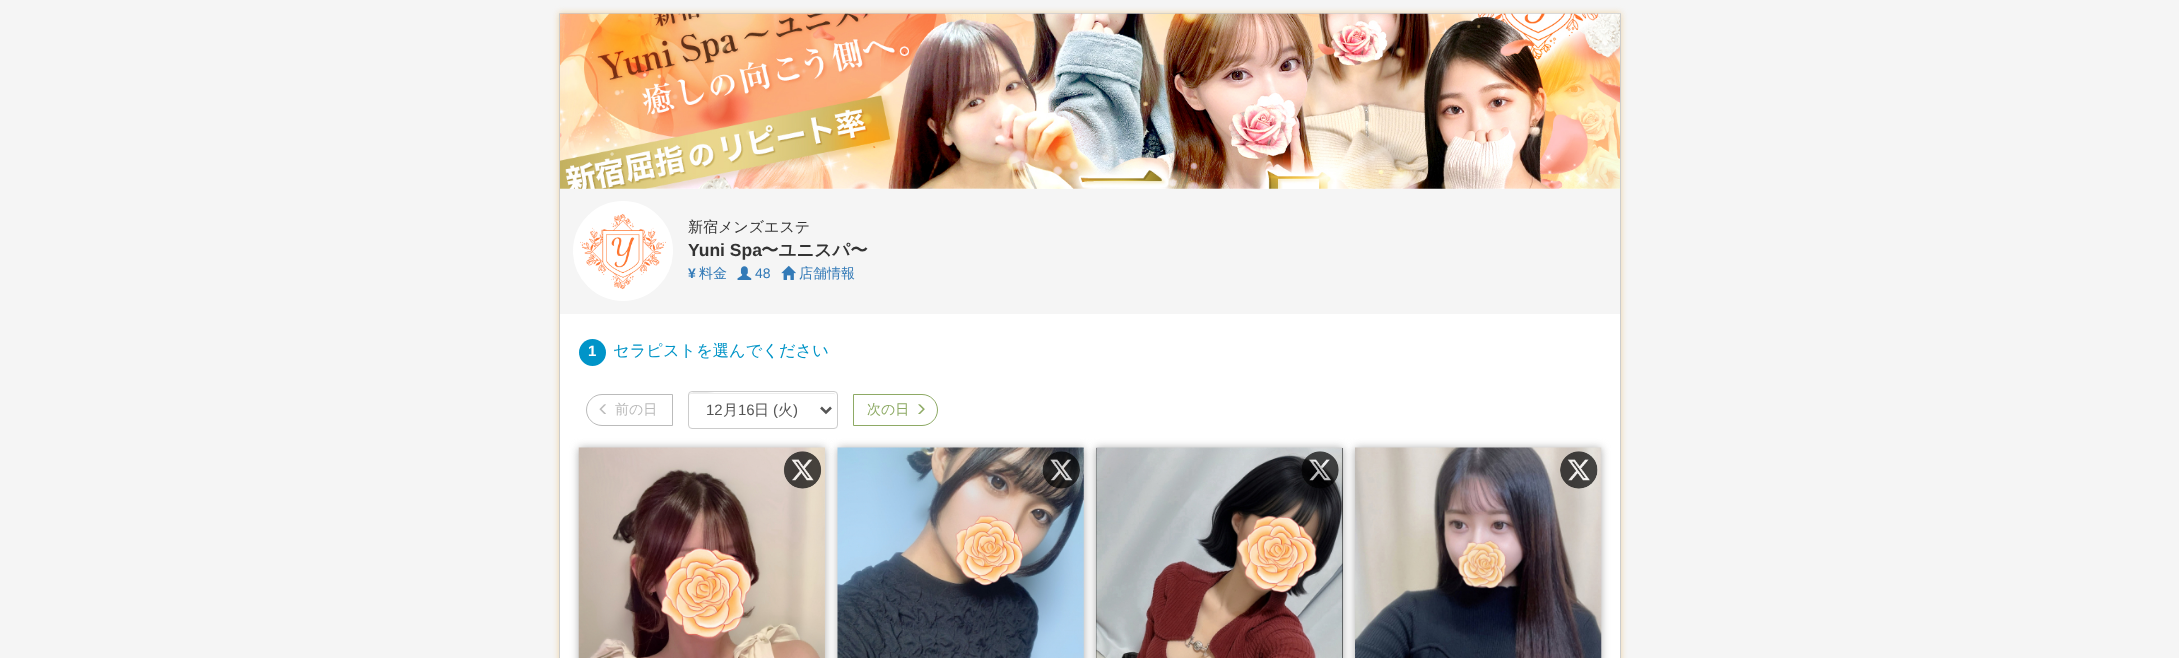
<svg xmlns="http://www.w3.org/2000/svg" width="2179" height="658">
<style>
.a{font:500 15px WenQuanYi Zen Hei;fill:#333}
.b{font:bold 17.5px Liberation Sans;fill:#333}
.c{font:bold 17.5px WenQuanYi Zen Hei;fill:#333}
.d{font:bold 14px Liberation Sans;fill:#337ab7}
.e{font:500 14px WenQuanYi Zen Hei;fill:#337ab7}
.f{font:14px Liberation Sans;fill:#337ab7}
.g{font:bold 15px Liberation Sans;fill:#fff}
.h{font:500 16.25px WenQuanYi Zen Hei;fill:#0094c7}
.i{font:500 14px WenQuanYi Zen Hei;fill:#bbb}
.j{font:15px Liberation Sans;fill:#555}
.k{font:500 15px WenQuanYi Zen Hei;fill:#555}
.l{font:500 14px WenQuanYi Zen Hei;fill:#8eaa65}
</style>
<rect width="100%" height="100%" fill="#f5f5f5"/>
<path fill="#efd3a5" filter="blur(3px)" d="M559 13h1062v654H559z"/>
<path fill="#fff" d="M560 188h1060v470H560z"/>
<path fill="none" stroke="#ccc" d="M559.5 13.5h1061v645H559.5z"/>
<image href="1.png" x="560" y="13" width="1060" height="176"/>
<path fill="#f5f5f5" d="M560 189h1060v125H560z"/>
<circle fill="#fff" stroke="#fff" stroke-width="4" cx="623" cy="251" r="48"/>
<image href="2.png" x="580" y="214" width="86" height="76"/>
<image href="3.png" x="737" y="266" width="15" height="14"/>
<image href="4.png" x="781" y="265" width="15" height="15"/>
<circle fill="#0094c8" cx="592.5" cy="352.5" r="13.5"/>
<path fill="none" stroke="#bbb" d="M602 394.5h70.5v31h-70.5c-8.5 0-15.5-7-15.5-15.5c0-8.5 7-15.5 15.5-15.5z"/>
<image href="5.png" x="599" y="404" width="7" height="10"/>
<path fill="#ececec" d="M691 394h143c1 0 2 1 2 2l-1-2l-1-1h-119c-2 0-26-5-26 3c0-1 1-2 2-2z"/>
<rect fill="none" stroke="#ccc" x="688.5" y="391.5" width="149" height="37" rx="3.5"/>
<path fill="none" stroke="#555" stroke-width="2.5" d="M821 407.5l5 5l5-5"/>
<path fill="none" stroke="#8eaa65" d="M853.5 394.5h68.5c8.5 0 15.5 7 15.5 15.5c0 8.5-7 15.5-15.5 15.5h-68.5z"/>
<image href="6.png" x="918" y="404" width="7" height="10"/>
<path fill="#aaa" filter="blur(4px)" d="M579 448h246v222H579z"/>
<image href="7.png" x="578" y="447" width="247" height="211"/>
<image href="8.png" x="783" y="451" width="39" height="38"/>
<path fill="#aaa" filter="blur(4px)" d="M838 448h246v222H838z"/>
<image href="9.png" x="837" y="447" width="247" height="211"/>
<image href="10.png" x="1042" y="451" width="38" height="38"/>
<path fill="#aaa" filter="blur(4px)" d="M1096 448h247v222H1096z"/>
<path fill="#000" d="M1096 448h247v210H1096z"/>
<image href="11.png" x="1096" y="447" width="247" height="211"/>
<image href="12.png" x="1301" y="451" width="38" height="38"/>
<path fill="#aaa" filter="blur(4px)" d="M1355 448h246v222H1355z"/>
<image href="13.png" x="1355" y="447" width="247" height="211"/>
<image href="14.png" x="1560" y="451" width="38" height="38"/>
<text class="a" x="688" y="232">新宿メンズエステ</text>
<text class="b" x="688" y="256">Yuni Spa</text>
<text class="c" x="761" y="256">〜ユニスパ〜</text>
<text class="d" x="688" y="278">¥</text>
<text class="e" x="699" y="278">料金</text>
<text class="f" x="755" y="278">48</text>
<text class="e" x="799" y="278">店舗情報</text>
<text class="g" x="588" y="356">1</text>
<text class="h" x="613" y="356">セラピストを選んでください</text>
<text class="i" x="615" y="414">前の日</text>
<text class="j" x="706" y="415">12</text>
<text class="k" x="723" y="415">月</text>
<text class="j" x="738" y="415">16</text>
<text class="k" x="754" y="415">日</text>
<text class="j" x="773" y="415">(</text>
<text class="k" x="778" y="415">火</text>
<text class="j" x="793" y="415">)</text>
<text class="l" x="867" y="414">次の日</text>
</svg>
